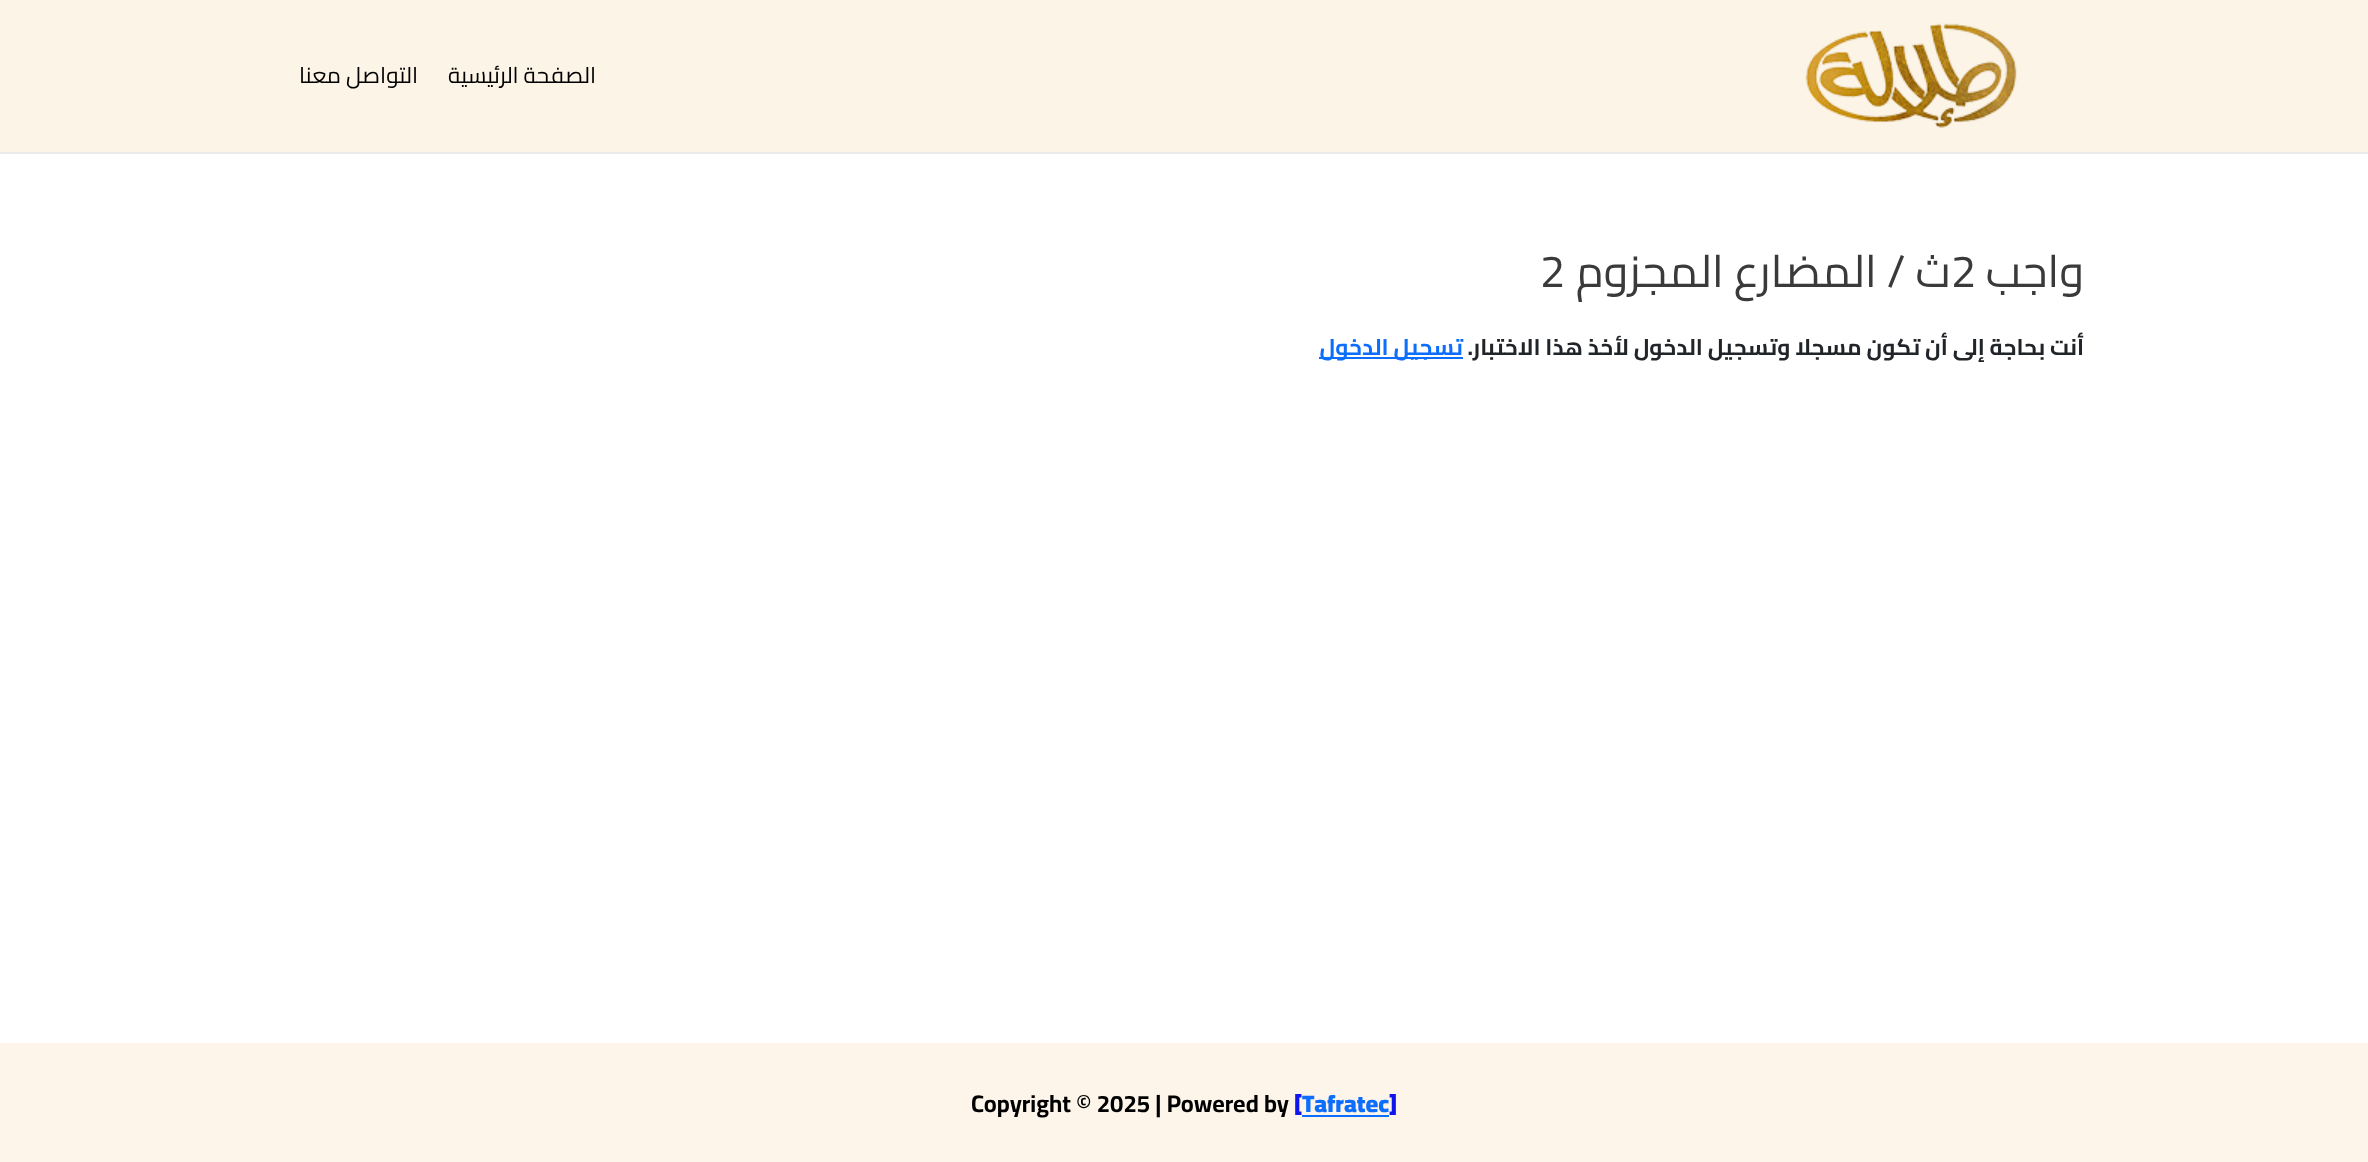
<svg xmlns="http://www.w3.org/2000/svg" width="2368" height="1162">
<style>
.a{font:22.5px Cairo;direction:rtl;fill:#000}
.b{font:45px Cairo;direction:rtl;fill:#3a3a3a}
.c{font:45px Cairo;fill:#3a3a3a}
.d{font:bold 22.5px Cairo;direction:rtl;fill:#212529}
.e{font:bold 22.5px Cairo;direction:rtl;fill:#0d6efd}
.f{font:900 24px Cairo;fill:#0e16ed}
.g{font:900 24px Cairo;fill:#0d6efd}
.h{font:bold 24px Cairo;fill:#000}
</style>
<rect width="100%" height="100%" fill="#fff"/>
<path fill="#fcf4e7" d="M0 0h2368v152H0z"/>
<path fill="#eaeaea" d="M0 152h2368v2H0z"/>
<image href="1.png" x="1805" y="23" width="212" height="105"/>
<path fill="#0d6efd" d="M1319 357h144v2H1319z"/>
<path fill="#fdf5ea" d="M0 1043h2368v119H0z"/>
<path fill="#0d6efd" d="M1302 1115h87v2H1302z"/>
<text class="a" x="596" y="83">الصفحة الرئيسية</text>
<text class="a" x="418" y="83">التواصل معنا</text>
<text class="b" x="2084" y="287">واجب</text>
<text class="c" x="1951" y="287">2</text>
<text class="b" x="1951" y="287">ث / المضارع المجزوم</text>
<text class="c" x="1540" y="287">2</text>
<text class="d" x="2084" y="355">أنت بحاجة إلى أن تكون مسجلا وتسجيل الدخول لأخذ هذا الاختبار.</text>
<text class="e" x="1463" y="355">تسجيل الدخول</text>
<text class="f" x="1389" y="1112">]</text>
<text class="g" x="1302" y="1112">Tafratec</text>
<text class="f" x="1294" y="1112">[</text>
<text class="h" x="971" y="1112">Copyright © 2025 | Powered by</text>
</svg>
